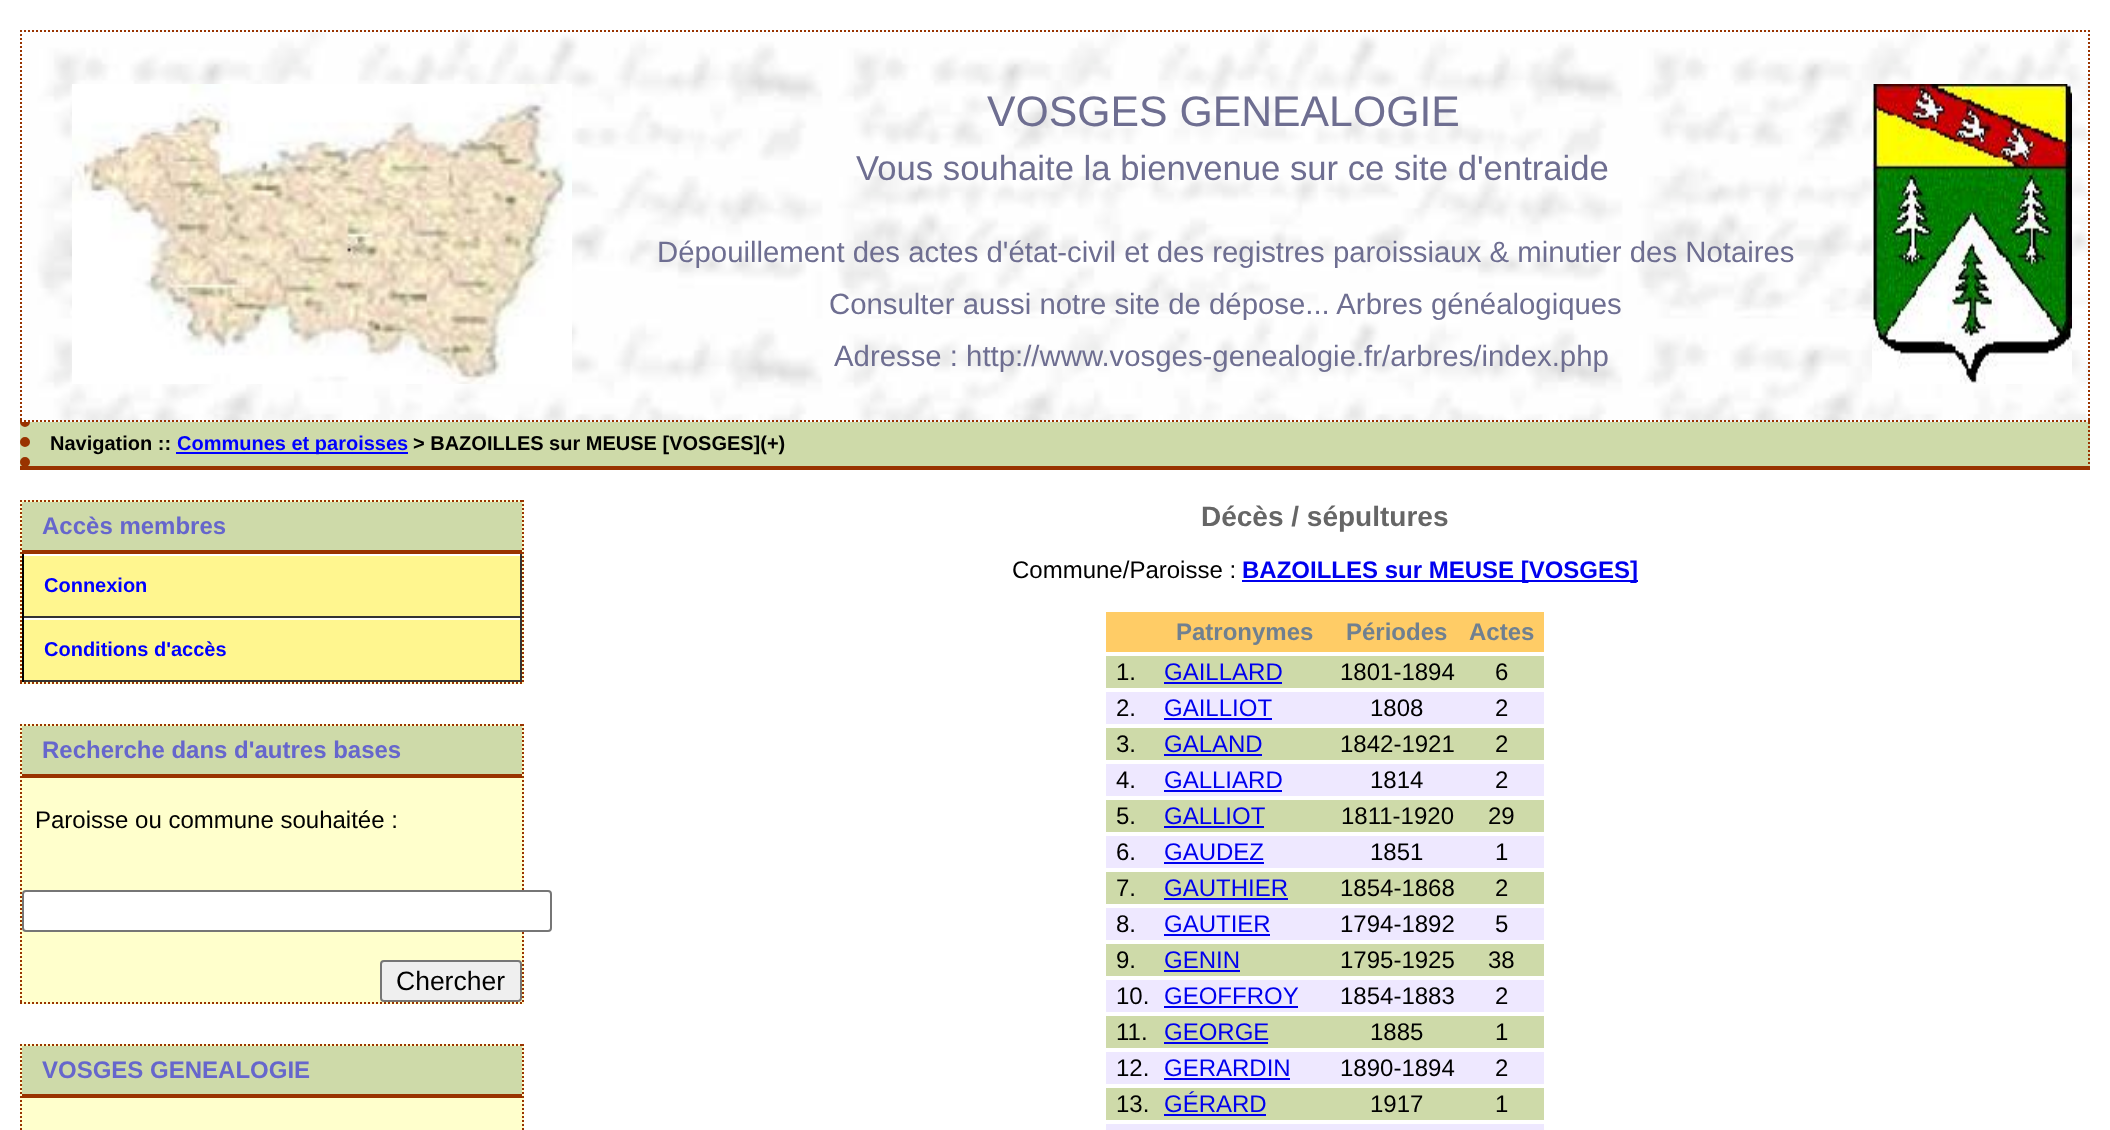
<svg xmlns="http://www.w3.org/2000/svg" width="2110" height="1130">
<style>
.a{font:42.75px Liberation Sans;fill:#6e6e91}
.b{font:34.7px Liberation Sans;fill:#6e6e91}
.c{font:29.35px Liberation Sans;fill:#6e6e91}
.d{font:bold 20px Liberation Sans;fill:#000}
.e{font:bold 20px Liberation Sans;fill:#00f}
.f{font:bold 24px Liberation Sans;fill:#66c}
.g{font:24px Liberation Sans;fill:#000}
.h{font:26.5px Liberation Sans;fill:#000}
.i{font:bold 28px Liberation Sans;fill:#666}
.j{font:bold 24px Liberation Sans;fill:#00e}
.k{font:bold 24px Liberation Sans;fill:#708090}
.l{font:24px Liberation Sans;fill:#00e}
</style>
<rect width="100%" height="100%" fill="#fff"/>
<path fill="#cedaa9" d="M20 422h2070v44H20z"/>
<path fill="none" stroke="#930" stroke-width="2" stroke-dasharray="2 2" d="M2089 422v48"/>
<path fill="#930" d="M20 466h2070v4H20z"/>
<path fill="none" stroke="#930" stroke-width="10" stroke-linecap="round" stroke-dasharray="0 20" d="M25 422v48"/>
<image href="1.png" x="20" y="30" width="2070" height="392"/>
<path fill="none" stroke="#930" stroke-width="2" stroke-dasharray="2 2" d="M20 31h2070"/>
<path fill="none" stroke="#930" stroke-width="2" stroke-dasharray="2 2" d="M2089 30v392"/>
<path fill="none" stroke="#930" stroke-width="2" stroke-dasharray="2 2" d="M20 421h2070"/>
<path fill="none" stroke="#930" stroke-width="2" stroke-dasharray="2 2" d="M21 30v392"/>
<image href="2.png" x="72" y="84" width="500" height="300"/>
<image href="3.png" x="1872" y="84" width="200" height="300"/>
<path fill="#00f" d="M176 452h232v2H176z"/>
<path fill="#ffc" d="M20 500h504v184H20z"/>
<path fill="none" stroke="#930" stroke-width="2" stroke-dasharray="2 2" d="M20 501h504"/>
<path fill="none" stroke="#930" stroke-width="2" stroke-dasharray="2 2" d="M523 500v184"/>
<path fill="none" stroke="#930" stroke-width="2" stroke-dasharray="2 2" d="M20 683h504"/>
<path fill="none" stroke="#930" stroke-width="2" stroke-dasharray="2 2" d="M21 500v184"/>
<path fill="#cedaa9" d="M22 502h500v48H22z"/>
<path fill="#930" d="M22 550h500v4H22z"/>
<path fill="#fff68f" d="M24 556h496v60H24z"/>
<path fill="#fff" d="M22 554h500v2H22z"/>
<path fill="#333" d="M520 554h2v64H520z"/>
<path fill="#333" d="M22 616h500v2H22z"/>
<path fill="#000" d="M22 554h2v64H22z"/>
<path fill="#fff68f" d="M24 620h496v60H24z"/>
<path fill="#fff" d="M22 618h500v2H22z"/>
<path fill="#333" d="M520 618h2v64H520z"/>
<path fill="#333" d="M22 680h500v2H22z"/>
<path fill="#000" d="M22 618h2v64H22z"/>
<path fill="#ffc" d="M20 724h504v280H20z"/>
<path fill="none" stroke="#930" stroke-width="2" stroke-dasharray="2 2" d="M20 725h504"/>
<path fill="none" stroke="#930" stroke-width="2" stroke-dasharray="2 2" d="M523 724v280"/>
<path fill="none" stroke="#930" stroke-width="2" stroke-dasharray="2 2" d="M20 1003h504"/>
<path fill="none" stroke="#930" stroke-width="2" stroke-dasharray="2 2" d="M21 724v280"/>
<path fill="#cedaa9" d="M22 726h500v48H22z"/>
<path fill="#930" d="M22 774h500v4H22z"/>
<rect fill="#fff" stroke="#767676" stroke-width="2" x="23" y="891" width="528" height="40" rx="3"/>
<rect fill="#efefef" stroke="#767676" stroke-width="2" x="381" y="961" width="140" height="40" rx="3"/>
<path fill="#ffc" d="M20 1044h504v86H20z"/>
<path fill="none" stroke="#930" stroke-width="2" stroke-dasharray="2 2" d="M20 1045h504"/>
<path fill="none" stroke="#930" stroke-width="2" stroke-dasharray="2 2" d="M523 1044v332"/>
<path fill="none" stroke="#930" stroke-width="2" stroke-dasharray="2 2" d="M21 1044v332"/>
<path fill="#cedaa9" d="M22 1046h500v48H22z"/>
<path fill="#930" d="M22 1094h500v4H22z"/>
<path fill="#00e" d="M1242 580h396v2H1242z"/>
<path fill="#fc6" d="M1106 612h438v40H1106z"/>
<path fill="#cedaa9" d="M1106 656h438v32H1106z"/>
<path fill="#00e" d="M1164 682h118v2H1164z"/>
<path fill="#eee8ff" d="M1106 692h438v32H1106z"/>
<path fill="#00e" d="M1164 718h108v2H1164z"/>
<path fill="#cedaa9" d="M1106 728h438v32H1106z"/>
<path fill="#00e" d="M1164 754h98v2H1164z"/>
<path fill="#eee8ff" d="M1106 764h438v32H1106z"/>
<path fill="#00e" d="M1164 790h118v2H1164z"/>
<path fill="#cedaa9" d="M1106 800h438v32H1106z"/>
<path fill="#00e" d="M1164 826h100v2H1164z"/>
<path fill="#eee8ff" d="M1106 836h438v32H1106z"/>
<path fill="#00e" d="M1164 862h100v2H1164z"/>
<path fill="#cedaa9" d="M1106 872h438v32H1106z"/>
<path fill="#00e" d="M1164 898h124v2H1164z"/>
<path fill="#eee8ff" d="M1106 908h438v32H1106z"/>
<path fill="#00e" d="M1164 934h106v2H1164z"/>
<path fill="#cedaa9" d="M1106 944h438v32H1106z"/>
<path fill="#00e" d="M1164 970h76v2H1164z"/>
<path fill="#eee8ff" d="M1106 980h438v32H1106z"/>
<path fill="#00e" d="M1164 1006h134v2H1164z"/>
<path fill="#cedaa9" d="M1106 1016h438v32H1106z"/>
<path fill="#00e" d="M1164 1042h104v2H1164z"/>
<path fill="#eee8ff" d="M1106 1052h438v32H1106z"/>
<path fill="#00e" d="M1164 1078h126v2H1164z"/>
<path fill="#cedaa9" d="M1106 1088h438v32H1106z"/>
<path fill="#00e" d="M1164 1114h102v2H1164z"/>
<path fill="#eee8ff" d="M1106 1124h438v6H1106z"/>
<text class="a" x="987" y="126">VOSGES GENEALOGIE</text>
<text class="b" x="856" y="180">Vous souhaite la bienvenue sur ce site d'entraide</text>
<text class="c" x="657" y="262">Dépouillement des actes d'état-civil et des registres paroissiaux &amp; minutier des Notaires</text>
<text class="c" x="829" y="314">Consulter aussi notre site de dépose... Arbres généalogiques</text>
<text class="c" x="834" y="366">Adresse : http://www.vosges-genealogie.fr/arbres/index.php</text>
<text class="d" x="50" y="450">Navigation ::</text>
<text class="e" x="177" y="450">Communes et paroisses</text>
<text class="d" x="413" y="450">&gt; BAZOILLES sur MEUSE [VOSGES](+)</text>
<text class="f" x="42" y="534">Accès membres</text>
<text class="e" x="44" y="592">Connexion</text>
<text class="e" x="44" y="656">Conditions d'accès</text>
<text class="f" x="42" y="758">Recherche dans d'autres bases</text>
<text class="g" x="35" y="828">Paroisse ou commune souhaitée :</text>
<text class="h" x="396" y="990">Chercher</text>
<text class="f" x="42" y="1078">VOSGES GENEALOGIE</text>
<text class="i" x="1201" y="526">Décès / sépultures</text>
<text class="g" x="1012" y="578">Commune/Paroisse :</text>
<text class="j" x="1242" y="578">BAZOILLES sur MEUSE [VOSGES]</text>
<text class="k" x="1176" y="640">Patronymes</text>
<text class="k" x="1346" y="640">Périodes</text>
<text class="k" x="1469" y="640">Actes</text>
<text class="g" x="1116" y="680">1.</text>
<text class="l" x="1164" y="680">GAILLARD</text>
<text class="g" x="1340" y="680">1801-1894</text>
<text class="g" x="1495" y="680">6</text>
<text class="g" x="1116" y="716">2.</text>
<text class="l" x="1164" y="716">GAILLIOT</text>
<text class="g" x="1370" y="716">1808</text>
<text class="g" x="1495" y="716">2</text>
<text class="g" x="1116" y="752">3.</text>
<text class="l" x="1164" y="752">GALAND</text>
<text class="g" x="1340" y="752">1842-1921</text>
<text class="g" x="1495" y="752">2</text>
<text class="g" x="1116" y="788">4.</text>
<text class="l" x="1164" y="788">GALLIARD</text>
<text class="g" x="1370" y="788">1814</text>
<text class="g" x="1495" y="788">2</text>
<text class="g" x="1116" y="824">5.</text>
<text class="l" x="1164" y="824">GALLIOT</text>
<text class="g" x="1341" y="824">1811-1920</text>
<text class="g" x="1488" y="824">29</text>
<text class="g" x="1116" y="860">6.</text>
<text class="l" x="1164" y="860">GAUDEZ</text>
<text class="g" x="1370" y="860">1851</text>
<text class="g" x="1495" y="860">1</text>
<text class="g" x="1116" y="896">7.</text>
<text class="l" x="1164" y="896">GAUTHIER</text>
<text class="g" x="1340" y="896">1854-1868</text>
<text class="g" x="1495" y="896">2</text>
<text class="g" x="1116" y="932">8.</text>
<text class="l" x="1164" y="932">GAUTIER</text>
<text class="g" x="1340" y="932">1794-1892</text>
<text class="g" x="1495" y="932">5</text>
<text class="g" x="1116" y="968">9.</text>
<text class="l" x="1164" y="968">GENIN</text>
<text class="g" x="1340" y="968">1795-1925</text>
<text class="g" x="1488" y="968">38</text>
<text class="g" x="1116" y="1004">10.</text>
<text class="l" x="1164" y="1004">GEOFFROY</text>
<text class="g" x="1340" y="1004">1854-1883</text>
<text class="g" x="1495" y="1004">2</text>
<text class="g" x="1116" y="1040">11.</text>
<text class="l" x="1164" y="1040">GEORGE</text>
<text class="g" x="1370" y="1040">1885</text>
<text class="g" x="1495" y="1040">1</text>
<text class="g" x="1116" y="1076">12.</text>
<text class="l" x="1164" y="1076">GERARDIN</text>
<text class="g" x="1340" y="1076">1890-1894</text>
<text class="g" x="1495" y="1076">2</text>
<text class="g" x="1116" y="1112">13.</text>
<text class="l" x="1164" y="1112">GÉRARD</text>
<text class="g" x="1370" y="1112">1917</text>
<text class="g" x="1495" y="1112">1</text>
</svg>
